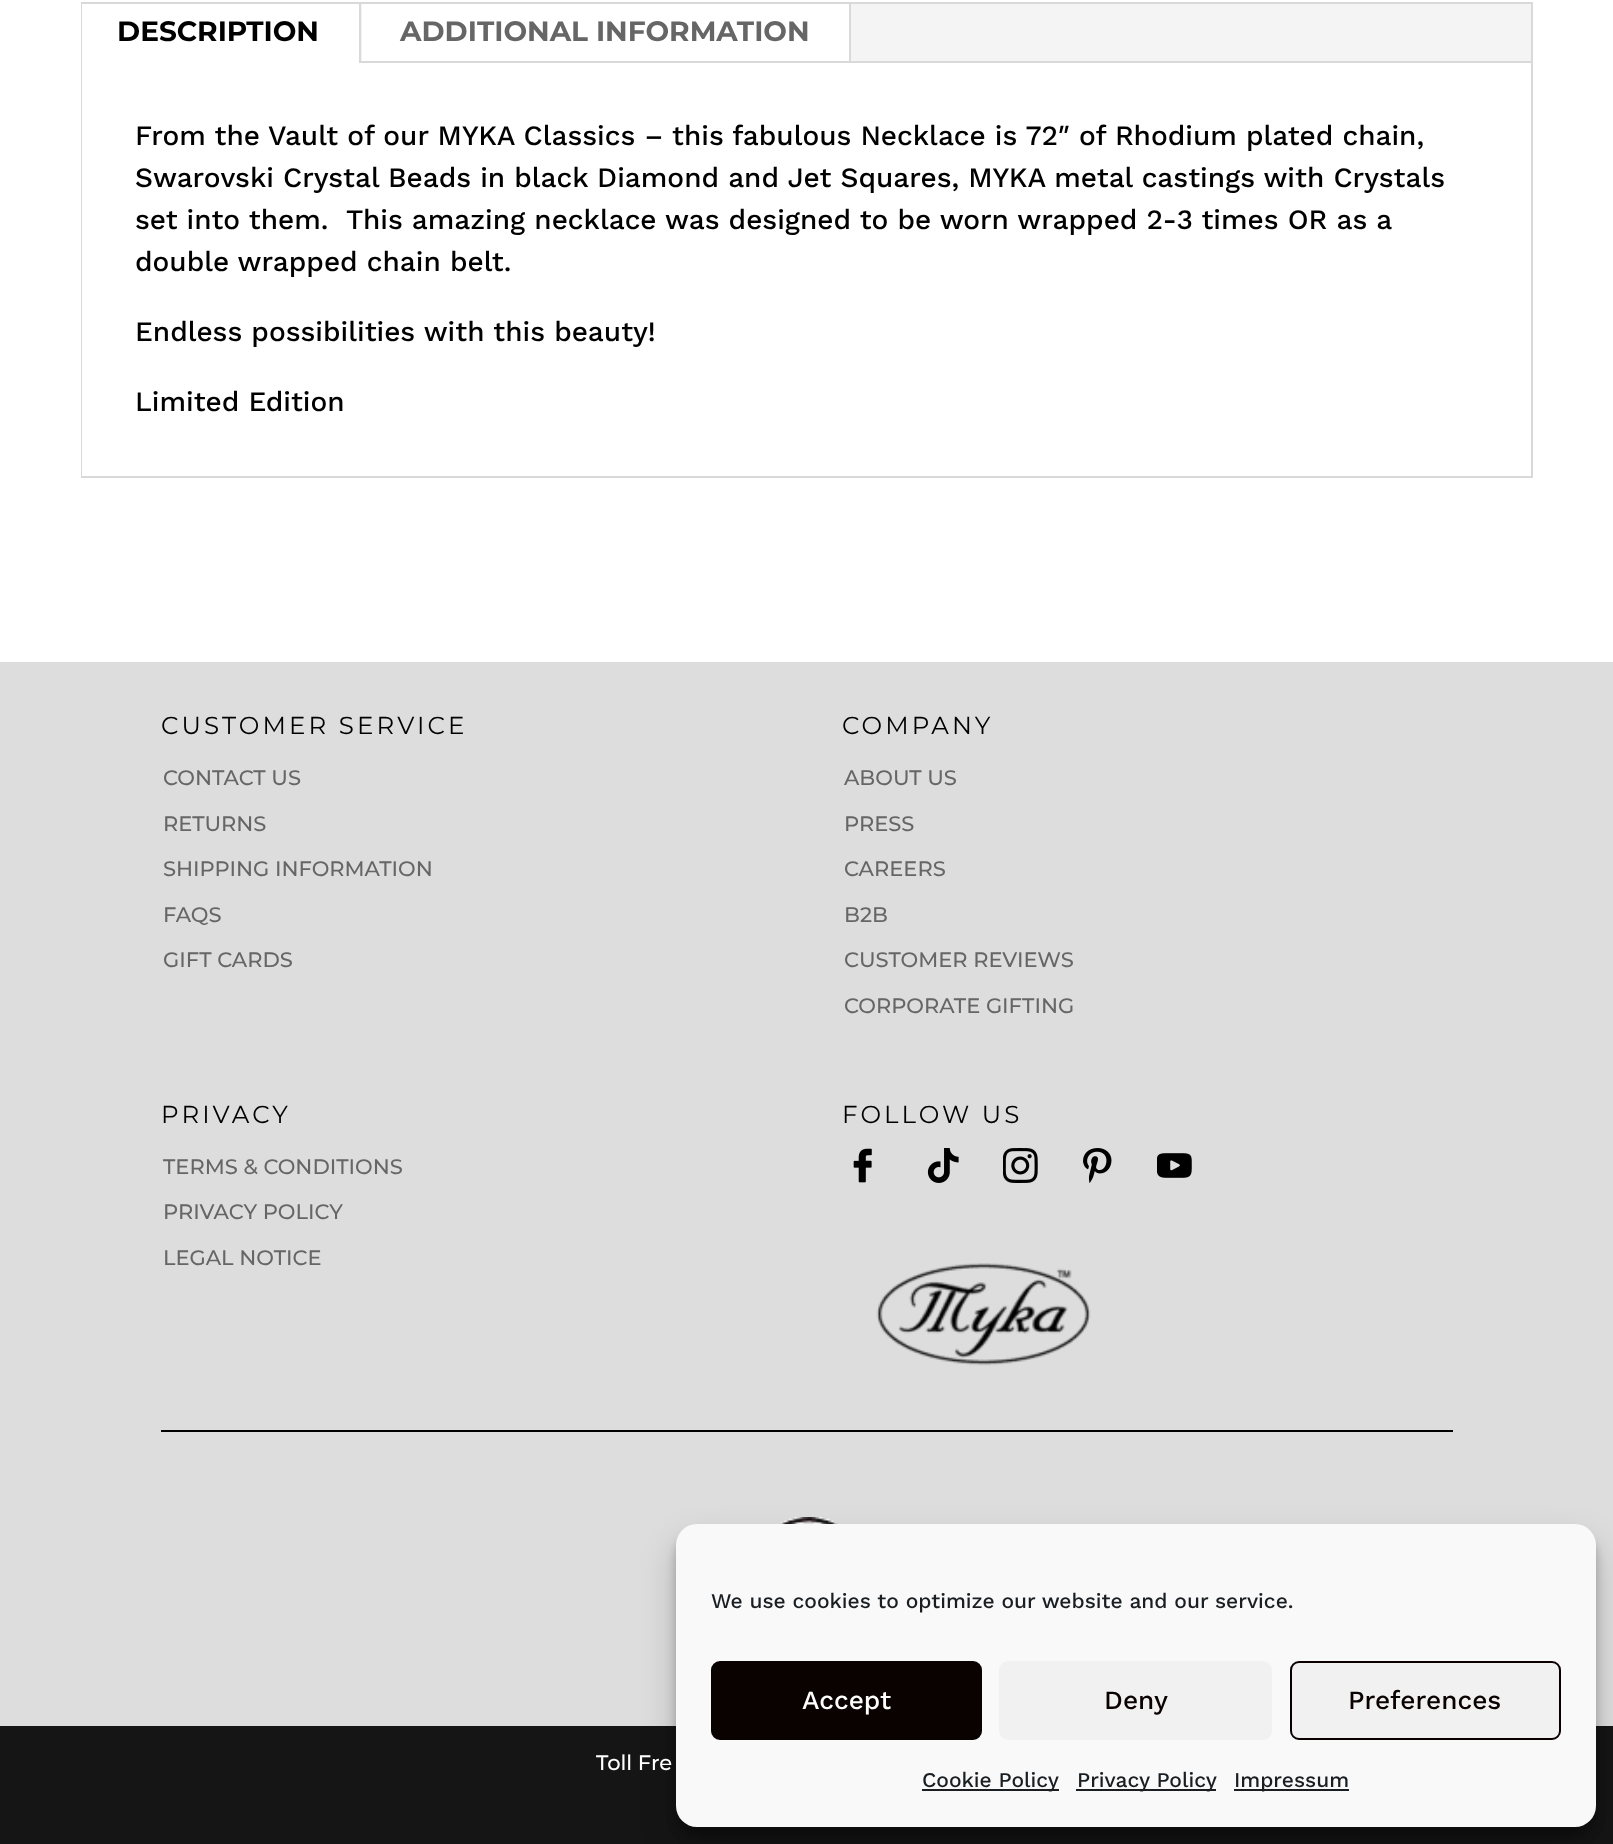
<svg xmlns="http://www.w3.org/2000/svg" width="1613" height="1844">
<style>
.a{font:bold 28px Montserrat;fill:#000}
.b{font:bold 28px Montserrat;fill:#666}
.c{font:500 28px Work Sans;fill:#000}
.d{font:24.5px Montserrat;letter-spacing:3.1px;fill:#000}
.e{font:500 21px Montserrat;fill:#666}
.f{font:500 21px Montserrat;fill:#fff}
.g{font:500 21px Work Sans;fill:#191e23}
.h{font:500 26.25px Work Sans;fill:#fff}
.i{font:500 26.25px Work Sans;fill:#0a0101}
</style>
<rect width="100%" height="100%" fill="#fff"/>
<path fill="none" stroke="#d9d9d9" stroke-width="2" d="M82 3h1450v474H82z"/>
<path fill="#f4f4f4" d="M361 4h1170v57H361z"/>
<path fill="#d9d9d9" d="M359 4h2v59H359z"/>
<path fill="#d9d9d9" d="M849 4h2v59H849z"/>
<path fill="#fff" d="M362 4h487v57H362z"/>
<path fill="#d9d9d9" d="M361 61h1170v2H361z"/>
<path fill="#fff" d="M82 4h1v472H82z"/>
<path fill="#ddd" d="M0 662h1613v1064H0z"/>
<image href="1.png" x="853" y="1148" width="19" height="35"/>
<image href="2.png" x="927" y="1148" width="32" height="35"/>
<image href="3.png" x="1003" y="1148" width="35" height="35"/>
<image href="4.png" x="1083" y="1148" width="29" height="35"/>
<image href="5.png" x="1157" y="1153" width="35" height="25"/>
<image href="6.png" x="876" y="1263" width="215" height="103"/>
<path fill="#000" d="M161 1430h1292v2H161z"/>
<image href="7.png" x="776" y="1517" width="65" height="7"/>
<path fill="#161515" d="M0 1726h1613v118H0z"/>
<rect fill="#0000003b" filter="blur(5px)" x="676" y="1535" width="920" height="303" rx="21"/>
<rect fill="#00000030" filter="blur(17.5px)" x="676" y="1542" width="920" height="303" rx="21"/>
<rect fill="#f9f9f9" x="676" y="1524" width="920" height="303" rx="21"/>
<rect fill="#0a0101" stroke="#0a0101" stroke-width="2" x="712" y="1662" width="269" height="77" rx="8"/>
<rect fill="#f1f1f1" x="999" y="1661" width="273" height="79" rx="9"/>
<rect fill="#f1f1f1" stroke="#0a0000" stroke-width="2" x="1291" y="1662" width="269" height="77" rx="8"/>
<path fill="#191e23" d="M922 1789h137v2H922z"/>
<path fill="#191e23" d="M1076 1789h140v2H1076z"/>
<path fill="#191e23" d="M1234 1789h115v2H1234z"/>
<text class="a" x="117" y="41">DESCRIPTION</text>
<text class="b" x="400" y="41">ADDITIONAL INFORMATION</text>
<text class="c" x="135" y="145">From the Vault of our MYKA Classics – this fabulous Necklace is 72″ of Rhodium plated chain,</text>
<text class="c" x="135" y="187">Swarovski Crystal Beads in black Diamond and Jet Squares, MYKA metal castings with Crystals</text>
<text class="c" xml:space="preserve" x="135" y="229">set into them.  This amazing necklace was designed to be worn wrapped 2-3 times OR as a</text>
<text class="c" x="135" y="271">double wrapped chain belt.</text>
<text class="c" x="135" y="341">Endless possibilities with this beauty!</text>
<text class="c" x="135" y="411">Limited Edition</text>
<text class="d" x="161" y="734">CUSTOMER SERVICE</text>
<text class="e" x="163" y="785">CONTACT US</text>
<text class="e" x="163" y="831">RETURNS</text>
<text class="e" x="163" y="876">SHIPPING INFORMATION</text>
<text class="e" x="163" y="922">FAQS</text>
<text class="e" x="163" y="967">GIFT CARDS</text>
<text class="d" x="842" y="734">COMPANY</text>
<text class="e" x="844" y="785">ABOUT US</text>
<text class="e" x="844" y="831">PRESS</text>
<text class="e" x="844" y="876">CAREERS</text>
<text class="e" x="844" y="922">B2B</text>
<text class="e" x="844" y="967">CUSTOMER REVIEWS</text>
<text class="e" x="844" y="1013">CORPORATE GIFTING</text>
<text class="d" x="161" y="1123">PRIVACY</text>
<text class="e" x="163" y="1174">TERMS &amp; CONDITIONS</text>
<text class="e" x="163" y="1219">PRIVACY POLICY</text>
<text class="e" x="163" y="1265">LEGAL NOTICE</text>
<text class="d" x="842" y="1123">FOLLOW US</text>
<text class="f" x="596" y="1770">Toll Fre</text>
<text class="g" x="711" y="1608">We use cookies to optimize our website and our service.</text>
<text class="h" x="802" y="1709">Accept</text>
<text class="i" x="1104" y="1709">Deny</text>
<text class="i" x="1348" y="1709">Preferences</text>
<text class="g" x="922" y="1787">Cookie Policy</text>
<text class="g" x="1077" y="1787">Privacy Policy</text>
<text class="g" x="1234" y="1787">Impressum</text>
</svg>
